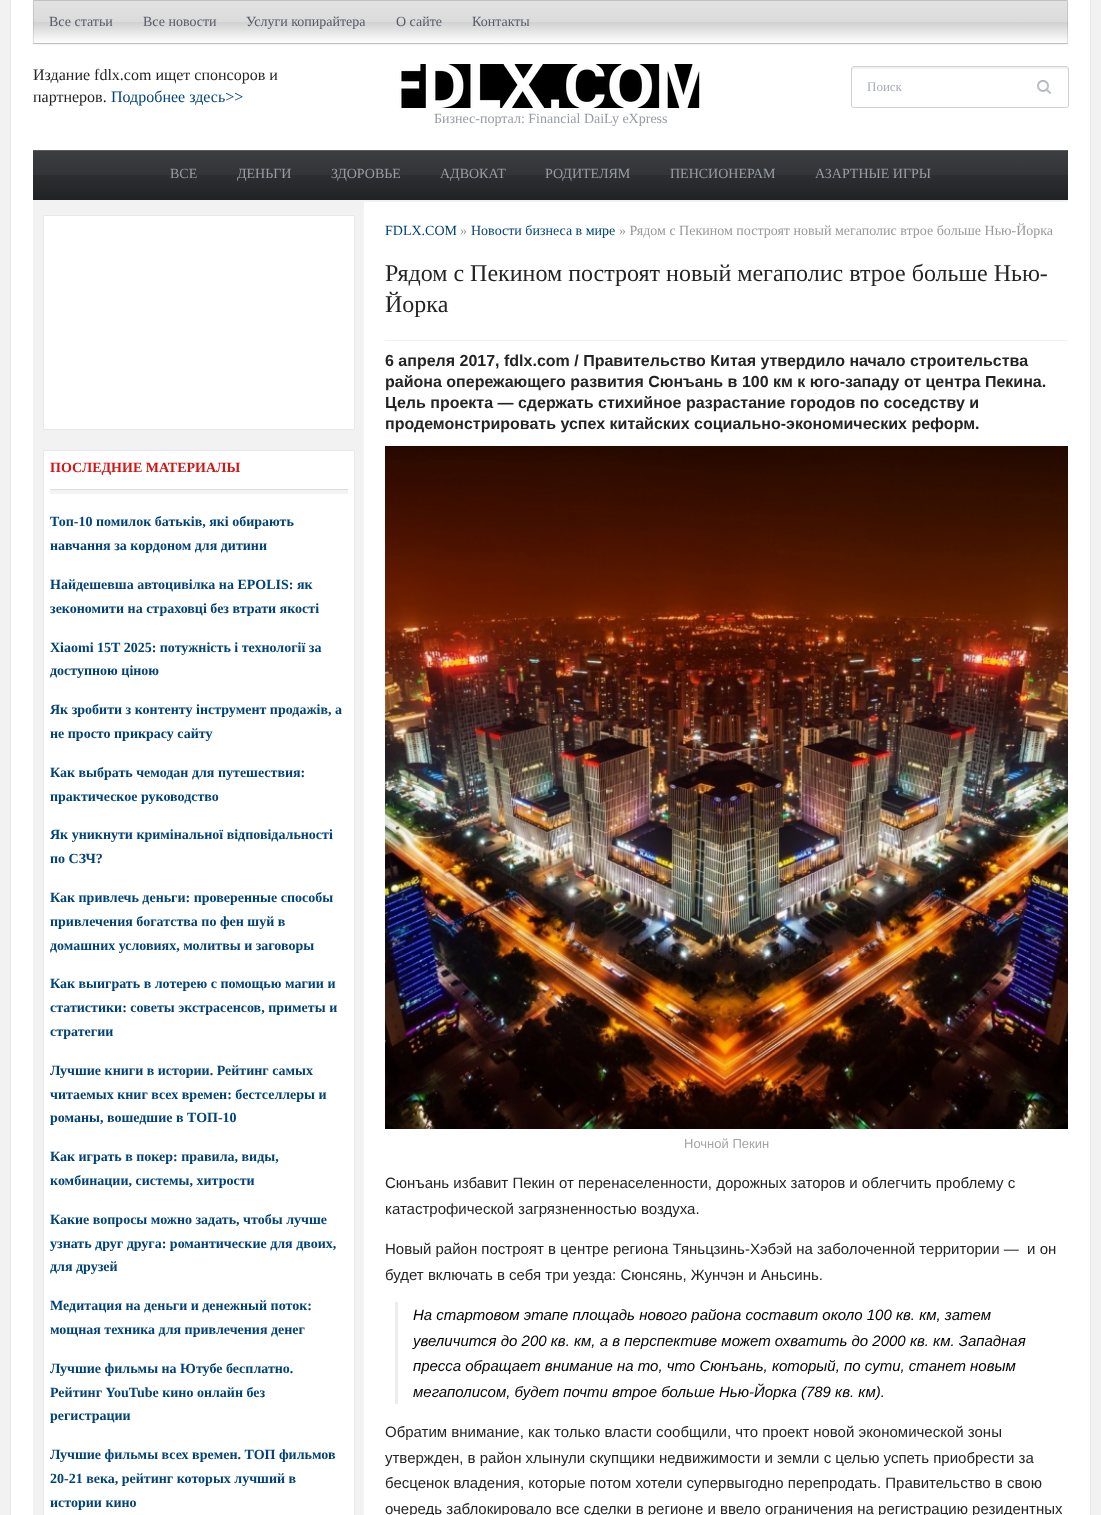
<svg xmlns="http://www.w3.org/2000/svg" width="1101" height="1515">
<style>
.a{font:14px Liberation Serif;fill:#575b68}
.b{font:16px Liberation Serif;fill:#252324}
.c{font:16px Liberation Serif;fill:#004276}
.d{font:13px Liberation Serif;fill:#a8adb6}
.e{font:14px Liberation Serif;fill:#979ca3}
.f{font:bold 14px Liberation Serif;fill:#d31515}
.g{font:bold 14px Liberation Serif;fill:#004276}
.h{font:14px Liberation Serif;fill:#004276}
.i{font:14px Liberation Serif;fill:#999}
.j{font:24px Liberation Serif;fill:#252324}
.k{font:bold 16px Liberation Sans;fill:#252324}
.l{font:13px Liberation Sans;fill:#a7a3a3}
.m{font:15px Liberation Sans;fill:#252324}
.n{font:italic 15px Liberation Sans;fill:#000}
</style>
<defs>
<linearGradient id="g1" gradientUnits="userSpaceOnUse" x1="551" y1="1" x2="551" y2="43"><stop offset="0" stop-color="#e2e2e2"/><stop offset="0.5" stop-color="#dbdbdb"/><stop offset="0.51" stop-color="#d1d1d1"/><stop offset="1" stop-color="#fefefe"/></linearGradient>
<linearGradient id="g2" gradientUnits="userSpaceOnUse" x1="551" y1="43" x2="551" y2="85"><stop offset="0" stop-color="#e2e2e2"/><stop offset="0.5" stop-color="#dbdbdb"/><stop offset="0.51" stop-color="#d1d1d1"/><stop offset="1" stop-color="#fefefe"/></linearGradient>
<linearGradient id="g3" gradientUnits="userSpaceOnUse" x1="551" y1="150" x2="551" y2="200"><stop offset="0" stop-color="#3c3e42"/><stop offset="0.5" stop-color="#323438"/><stop offset="0.5" stop-color="#2c2e31"/><stop offset="1" stop-color="#202224"/></linearGradient>
</defs>
<rect width="100%" height="100%" fill="#f2f2f2"/>
<path fill="#fff" d="M11 0h1079v1515H11z"/>
<path fill="#e8e6e6" d="M1090 0h1v1515H1090z"/>
<path fill="#e8e6e6" d="M10 0h1v1515H10z"/>
<path fill="#0000000d" filter="blur(1px)" d="M33 1h1035v44H33z"/>
<path fill="url(#g1)" d="M33 1h1035v42H33z"/>
<path fill="url(#g2)" d="M33 43h1035v1H33z"/>
<path fill="#bdbfc0" d="M33 0h1035l-1 1h-1033z"/>
<path fill="#0000001a" d="M1068 0v44l-1-1v-42z"/>
<path fill="#bdbfc0" d="M1068 44h-1035l1-1h1033z"/>
<path fill="#0000001a" d="M33 44v-44l1 1v42z"/>
<path fill="#f2f2f2" d="M854 69h212c1 0 2 1 2 2v-2c0-1-1-2-2-2h-212c-1 0-2 1-2 2v2c0-1 1-2 2-2z"/>
<rect fill="none" stroke="#ced2d8" x="851.5" y="66.5" width="217" height="41" rx="2.5"/>
<image href="1.png" x="1037" y="80" width="14" height="14"/>
<image href="2.png" x="399" y="64" width="301" height="44"/>
<path fill="#0000000d" filter="blur(0.5px)" d="M33 152h1035v50H33z"/>
<path fill="url(#g3)" d="M33 151h1035v49H33z"/>
<path fill="#595b5e" d="M33 150h1035v1H33z"/>
<path fill="#f2f2f2" d="M33 201h331v1314H33z"/>
<path fill="#fff" stroke="#e8e8e8" d="M43.5 215.5h311v214H43.5z"/>
<path fill="#fff" stroke="#e8e8e8" d="M43.5 450.5h311v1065H43.5z"/>
<path fill="#f3f3f3" d="M50 490h298v4H50z"/>
<path fill="#ddd" d="M50 489h298v1H50z"/>
<path fill="#f0f0f0" d="M385 340h683v1H385z"/>
<image href="3.png" x="385" y="446" width="683" height="683"/>
<path fill="#ececec" d="M395 1302h3v102H395z"/>
<text class="a" x="49" y="26">Все статьи</text>
<text class="a" x="143" y="26">Все новости</text>
<text class="a" x="246" y="26">Услуги копирайтера</text>
<text class="a" x="396" y="26">О сайте</text>
<text class="a" x="472" y="26">Контакты</text>
<text class="b" x="33" y="80">Издание fdlx.com ищет спонсоров и</text>
<text class="b" x="33" y="102">партнеров.</text>
<text class="c" x="111" y="102">Подробнее здесь&gt;&gt;</text>
<text class="d" x="867" y="91">Поиск</text>
<text class="e" x="434" y="123">Бизнес-портал: Financial DaiLy eXpress</text>
<text class="e" x="170" y="178">ВСЕ</text>
<text class="e" x="237" y="178">ДЕНЬГИ</text>
<text class="e" x="331" y="178">ЗДОРОВЬЕ</text>
<text class="e" x="440" y="178">АДВОКАТ</text>
<text class="e" x="545" y="178">РОДИТЕЛЯМ</text>
<text class="e" x="670" y="178">ПЕНСИОНЕРАМ</text>
<text class="e" x="815" y="178">АЗАРТНЫЕ ИГРЫ</text>
<text class="f" x="50" y="472">ПОСЛЕДНИЕ МАТЕРИАЛЫ</text>
<text class="g" x="50" y="526">Топ-10 помилок батьків, які обирають</text>
<text class="g" x="50" y="550">навчання за кордоном для дитини</text>
<text class="g" x="50" y="589">Найдешевша автоцивілка на EPOLIS: як</text>
<text class="g" x="50" y="613">зекономити на страховці без втрати якості</text>
<text class="g" x="50" y="652">Xiaomi 15T 2025: потужність і технології за</text>
<text class="g" x="50" y="675">доступною ціною</text>
<text class="g" x="50" y="714">Як зробити з контенту інструмент продажів, а</text>
<text class="g" x="50" y="738">не просто прикрасу сайту</text>
<text class="g" x="50" y="777">Как выбрать чемодан для путешествия:</text>
<text class="g" x="50" y="801">практическое руководство</text>
<text class="g" x="50" y="839">Як уникнути кримінальної відповідальності</text>
<text class="g" x="50" y="863">по СЗЧ?</text>
<text class="g" x="50" y="902">Как привлечь деньги: проверенные способы</text>
<text class="g" x="50" y="926">привлечения богатства по фен шуй в</text>
<text class="g" x="50" y="950">домашних условиях, молитвы и заговоры</text>
<text class="g" x="50" y="988">Как выиграть в лотерею с помощью магии и</text>
<text class="g" x="50" y="1012">статистики: советы экстрасенсов, приметы и</text>
<text class="g" x="50" y="1036">стратегии</text>
<text class="g" x="50" y="1075">Лучшие книги в истории. Рейтинг самых</text>
<text class="g" x="50" y="1099">читаемых книг всех времен: бестселлеры и</text>
<text class="g" x="50" y="1122">романы, вошедшие в ТОП-10</text>
<text class="g" x="50" y="1161">Как играть в покер: правила, виды,</text>
<text class="g" x="50" y="1185">комбинации, системы, хитрости</text>
<text class="g" x="50" y="1224">Какие вопросы можно задать, чтобы лучше</text>
<text class="g" x="50" y="1248">узнать друг друга: романтические для двоих,</text>
<text class="g" x="50" y="1271">для друзей</text>
<text class="g" x="50" y="1310">Медитация на деньги и денежный поток:</text>
<text class="g" x="50" y="1334">мощная техника для привлечения денег</text>
<text class="g" x="50" y="1373">Лучшие фильмы на Ютубе бесплатно.</text>
<text class="g" x="50" y="1397">Рейтинг YouTube кино онлайн без</text>
<text class="g" x="50" y="1420">регистрации</text>
<text class="g" x="50" y="1459">Лучшие фильмы всех времен. ТОП фильмов</text>
<text class="g" x="50" y="1483">20-21 века, рейтинг которых лучший в</text>
<text class="g" x="50" y="1507">истории кино</text>
<text class="h" x="385" y="235">FDLX.COM</text>
<text class="i" x="460" y="235">»</text>
<text class="h" x="471" y="235">Новости бизнеса в мире</text>
<text class="i" x="619" y="235">» Рядом с Пекином построят новый мегаполис втрое больше Нью-Йорка</text>
<text class="j" x="385" y="281">Рядом с Пекином построят новый мегаполис втрое больше Нью-</text>
<text class="j" x="385" y="312">Йорка</text>
<text class="k" x="385" y="366">6 апреля 2017, fdlx.com / Правительство Китая утвердило начало строительства</text>
<text class="k" x="385" y="387">района опережающего развития Сюнъань в 100 км к юго-западу от центра Пекина.</text>
<text class="k" x="385" y="408">Цель проекта — сдержать стихийное разрастание городов по соседству и</text>
<text class="k" x="385" y="429">продемонстрировать успех китайских социально-экономических реформ.</text>
<text class="l" x="684" y="1148">Ночной Пекин</text>
<text class="m" x="385" y="1188">Сюнъань избавит Пекин от перенаселенности, дорожных заторов и облегчить проблему с</text>
<text class="m" x="385" y="1214">катастрофической загрязненностью воздуха.</text>
<text class="m" xml:space="preserve" x="385" y="1254">Новый район построят в центре региона Тяньцзинь-Хэбэй на заболоченной территории —  и он</text>
<text class="m" x="385" y="1280">будет включать в себя три уезда: Сюнсянь, Жунчэн и Аньсинь.</text>
<text class="n" x="413" y="1320">На стартовом этапе площадь нового района составит около 100 кв. км, затем</text>
<text class="n" x="413" y="1346">увеличится до 200 кв. км, а в перспективе может охватить до 2000 кв. км. Западная</text>
<text class="n" x="413" y="1371">пресса обращает внимание на то, что Сюнъань, который, по сути, станет новым</text>
<text class="n" x="413" y="1397">мегаполисом, будет почти втрое больше Нью-Йорка (789 кв. км).</text>
<text class="m" x="385" y="1437">Обратим внимание, как только власти сообщили, что проект новой экономической зоны</text>
<text class="m" x="385" y="1463">утвержден, в район хлынули скупщики недвижимости и земли с целью успеть приобрести за</text>
<text class="m" x="385" y="1488">бесценок владения, которые потом хотели супервыгодно перепродать. Правительство в свою</text>
<text class="m" x="385" y="1514">очередь заблокировало все сделки в регионе и ввело ограничения на регистрацию резидентных</text>
</svg>
